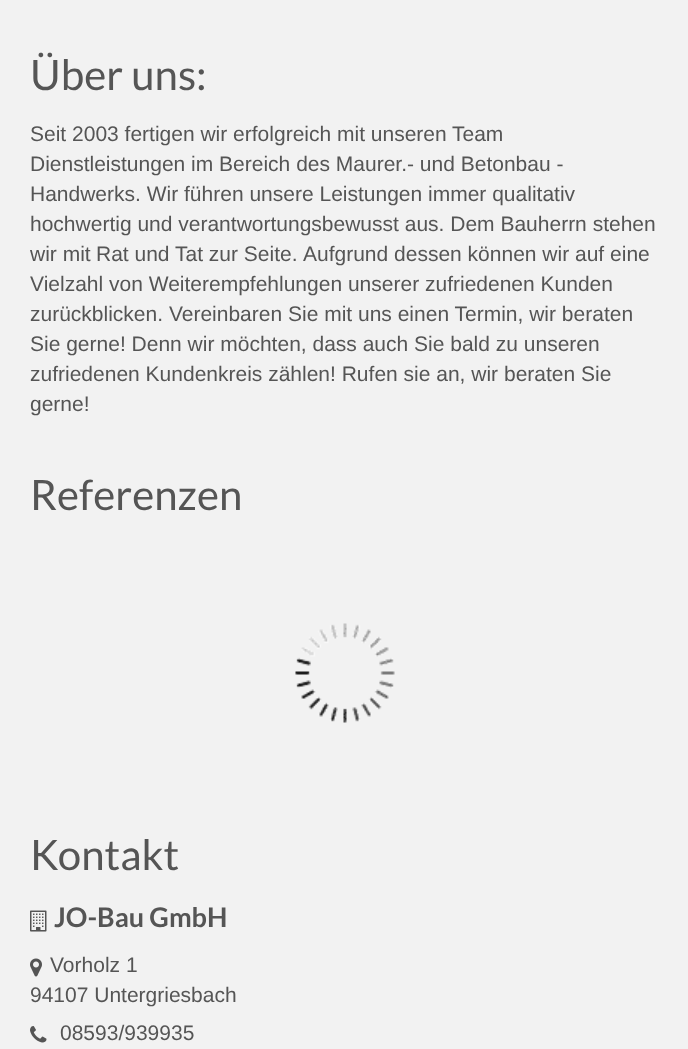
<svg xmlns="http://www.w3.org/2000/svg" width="688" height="1049">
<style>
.a{font:42px Lato;fill:#555}
.b{font:21px Liberation Sans;fill:#555}
.c{font:bold 27px Lato;fill:#555}
</style>
<rect width="100%" height="100%" fill="#f2f2f2"/>
<image href="1.png" x="295" y="623" width="100" height="100"/>
<image href="2.png" x="30" y="910" width="17" height="22"/>
<image href="3.png" x="30" y="958" width="12" height="19"/>
<image href="4.png" x="30" y="1026" width="17" height="17"/>
<text class="a" x="30" y="90">Über uns:</text>
<text class="b" x="30" y="141">Seit 2003 fertigen wir erfolgreich mit unseren</text>
<text class="b" x="452" y="141">Team</text>
<text class="b" x="30" y="171">Dienstleistungen im Bereich des Maurer.- und Betonbau -</text>
<text class="b" x="30" y="201">Handwerks. Wir führen unsere Leistungen immer qualitativ</text>
<text class="b" x="30" y="231">hochwertig und verantwortungsbewusst aus. Dem Bauherrn stehen</text>
<text class="b" x="30" y="261">wir mit</text>
<text class="b" x="96" y="261">Rat und Tat zur Seite.</text>
<text class="b" x="303" y="261">Aufgrund dessen können wir auf eine</text>
<text class="b" x="30" y="291">Vielzahl von Weiterempfehlungen unserer zufriedenen Kunden</text>
<text class="b" x="30" y="321">zurückblicken. Vereinbaren Sie mit uns einen Termin, wir beraten</text>
<text class="b" x="30" y="351">Sie gerne! Denn wir möchten, dass auch Sie bald zu unseren</text>
<text class="b" x="30" y="381">zufriedenen Kundenkreis zählen! Rufen sie an, wir beraten Sie</text>
<text class="b" x="30" y="411">gerne!</text>
<text class="a" x="30" y="510">Referenzen</text>
<text class="a" x="30" y="870">Kontakt</text>
<text class="c" x="54" y="927">JO-Bau GmbH</text>
<text class="b" x="50" y="972">Vorholz 1</text>
<text class="b" x="30" y="1002">94107 Untergriesbach</text>
<text class="b" x="60" y="1040">08593/939935</text>
</svg>
